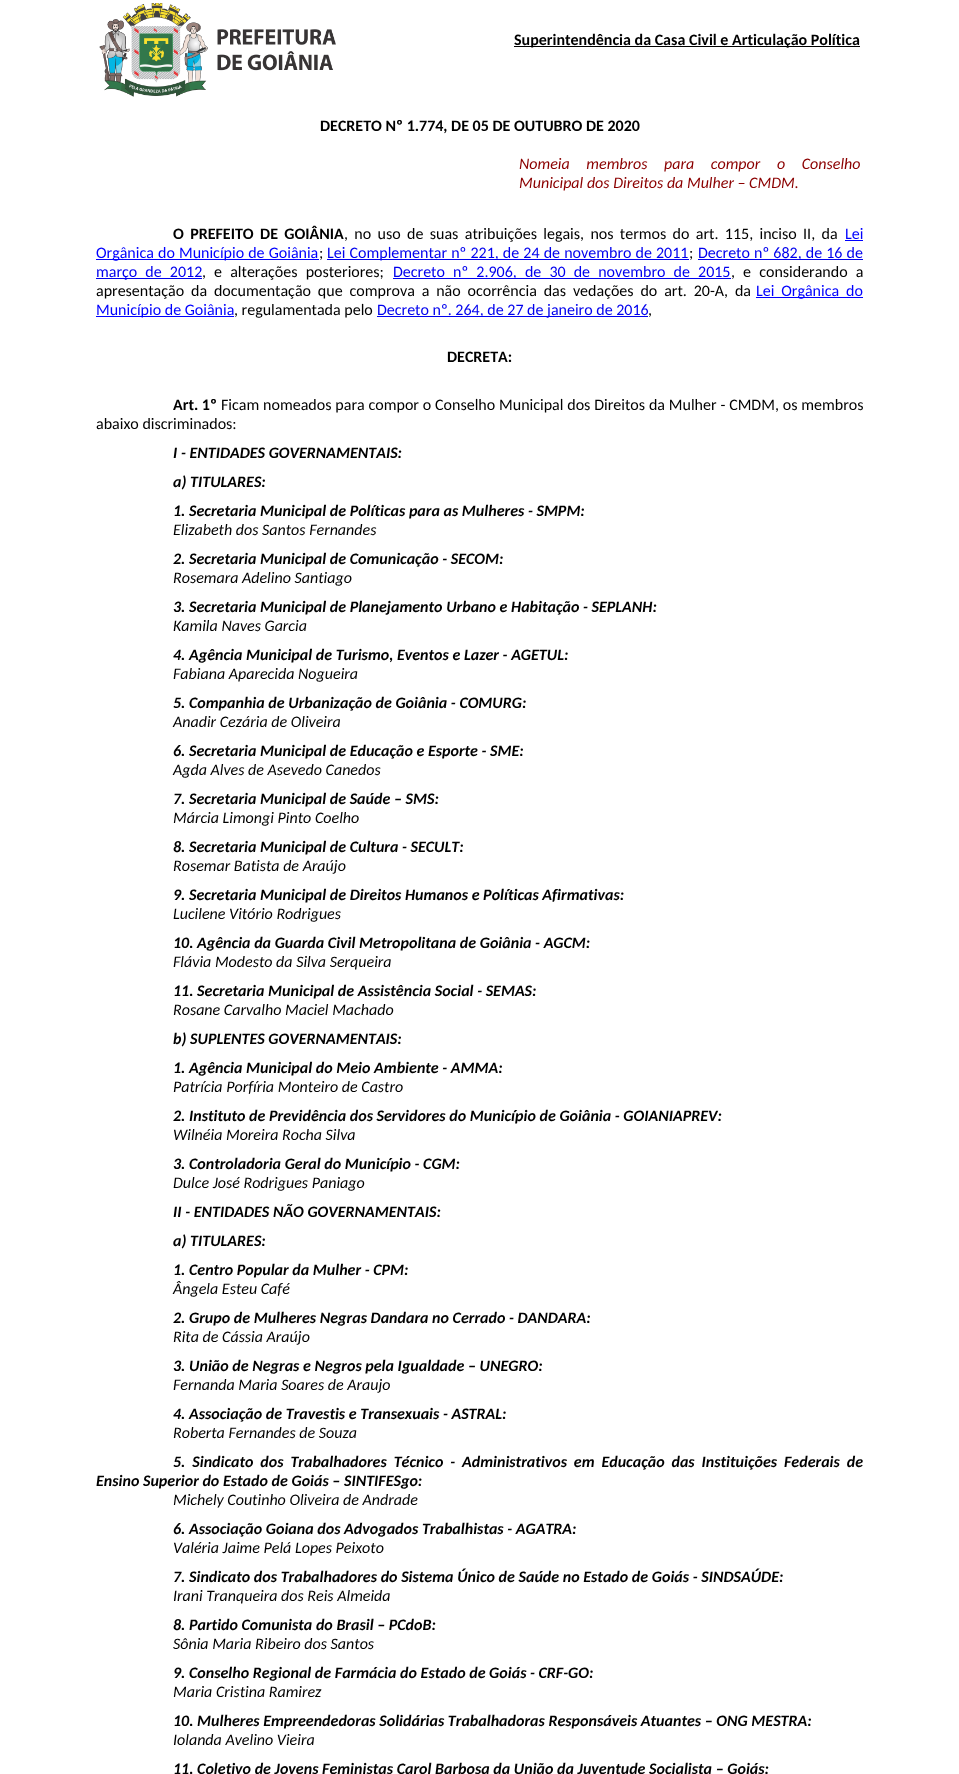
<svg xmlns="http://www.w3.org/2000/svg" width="959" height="1774">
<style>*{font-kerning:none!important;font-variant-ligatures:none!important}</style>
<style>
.a{font:bold 16px Carlito;fill:#000}
.b{font:italic 16px Carlito;fill:#8b0000}
.c{font:16px Carlito;fill:#000}
.d{font:16px Carlito;fill:#00f}
.e{font:16px Carlito;fill:#00e}
.f{font:italic bold 16px Carlito;fill:#000}
.g{font:italic 16px Carlito;fill:#000}
</style>
<rect width="100%" height="100%" fill="#fff"/>
<image href="1.png" x="99" y="3" width="237" height="94"/>
<path fill="#000" d="M514 46h346v1H514z"/>
<path fill="#00f" d="M845 240h18v1H845z"/>
<path fill="#00f" d="M96 259h223v1H96z"/>
<path fill="#00e" d="M327 259h362v1H327z"/>
<path fill="#00e" d="M698 259h165v1H698z"/>
<path fill="#00e" d="M96 278h106v1H96z"/>
<path fill="#00e" d="M393 278h338v1H393z"/>
<path fill="#00f" d="M756 297h107v1H756z"/>
<path fill="#00f" d="M96 316h138v1H96z"/>
<path fill="#00e" d="M377 316h271v1H377z"/>
<text class="a" x="514" y="45">Superintendência da Casa Civil e Articulação Política</text>
<text class="a" x="320" y="131">DECRETO Nº 1.774, DE 05 DE OUTUBRO DE 2020</text>
<text class="b" x="519" y="169" word-spacing="13">Nomeia membros para compor o Conselho</text>
<text class="b" x="519" y="188">Municipal dos Direitos da Mulher – CMDM.</text>
<text class="a" x="173" y="239" word-spacing="2.75">O PREFEITO DE GOIÂNIA</text>
<text class="c" x="344" y="239" word-spacing="2.75">, no uso de suas atribuições legais, nos termos do art. 115, inciso II, da</text>
<text class="d" x="845" y="239">Lei</text>
<text class="d" x="96" y="258" word-spacing="0.5">Orgânica do Município de Goiânia</text>
<text class="c" x="319" y="258">;</text>
<text class="e" x="327" y="258" word-spacing="0.5">Lei Complementar nº 221, de 24 de novembro de 2011</text>
<text class="c" x="689" y="258">;</text>
<text class="e" x="698" y="258" word-spacing="0.5">Decreto nº 682, de 16 de</text>
<text class="e" x="96" y="277" word-spacing="4.5">março de 2012</text>
<text class="c" x="202" y="277" word-spacing="4.5">, e alterações posteriores;</text>
<text class="e" x="393" y="277" word-spacing="4.5">Decreto nº 2.906, de 30 de novembro de 2015</text>
<text class="c" x="731" y="277" word-spacing="4.5">, e considerando a</text>
<text class="c" x="96" y="296" word-spacing="3.25">apresentação da documentação que comprova a não ocorrência das vedações do art. 20-A, da</text>
<text class="d" x="756" y="296" word-spacing="3.25">Lei Orgânica do</text>
<text class="d" x="96" y="315">Município de Goiânia</text>
<text class="c" x="234" y="315">, regulamentada pelo</text>
<text class="e" x="377" y="315">Decreto nº. 264, de 27 de janeiro de 2016</text>
<text class="c" x="648" y="315">,</text>
<text class="a" x="447" y="362">DECRETA:</text>
<text class="a" x="173" y="410">Art. 1º</text>
<text class="c" x="221" y="410" word-spacing="0.25">Ficam nomeados para compor o Conselho Municipal dos Direitos da Mulher - CMDM, os membros</text>
<text class="c" x="96" y="429">abaixo discriminados:</text>
<text class="f" x="173" y="458">I - ENTIDADES GOVERNAMENTAIS:</text>
<text class="f" x="173" y="487">a) TITULARES:</text>
<text class="f" x="173" y="516">1. Secretaria Municipal de Políticas para as Mulheres - SMPM:</text>
<text class="g" x="173" y="535">Elizabeth dos Santos Fernandes</text>
<text class="f" x="173" y="564">2. Secretaria Municipal de Comunicação - SECOM:</text>
<text class="g" x="173" y="583">Rosemara Adelino Santiago</text>
<text class="f" x="173" y="612">3. Secretaria Municipal de Planejamento Urbano e Habitação - SEPLANH:</text>
<text class="g" x="173" y="631">Kamila Naves Garcia</text>
<text class="f" x="173" y="660">4. Agência Municipal de Turismo, Eventos e Lazer - AGETUL:</text>
<text class="g" x="173" y="679">Fabiana Aparecida Nogueira</text>
<text class="f" x="173" y="708">5. Companhia de Urbanização de Goiânia - COMURG:</text>
<text class="g" x="173" y="727">Anadir Cezária de Oliveira</text>
<text class="f" x="173" y="756">6. Secretaria Municipal de Educação e Esporte - SME:</text>
<text class="g" x="173" y="775">Agda Alves de Asevedo Canedos</text>
<text class="f" x="173" y="804">7. Secretaria Municipal de Saúde – SMS:</text>
<text class="g" x="173" y="823">Márcia Limongi Pinto Coelho</text>
<text class="f" x="173" y="852">8. Secretaria Municipal de Cultura - SECULT:</text>
<text class="g" x="173" y="871">Rosemar Batista de Araújo</text>
<text class="f" x="173" y="900">9. Secretaria Municipal de Direitos Humanos e Políticas Afirmativas:</text>
<text class="g" x="173" y="919">Lucilene Vitório Rodrigues</text>
<text class="f" x="173" y="948">10. Agência da Guarda Civil Metropolitana de Goiânia - AGCM:</text>
<text class="g" x="173" y="967">Flávia Modesto da Silva Serqueira</text>
<text class="f" x="173" y="996">11. Secretaria Municipal de Assistência Social - SEMAS:</text>
<text class="g" x="173" y="1015">Rosane Carvalho Maciel Machado</text>
<text class="f" x="173" y="1044">b) SUPLENTES GOVERNAMENTAIS:</text>
<text class="f" x="173" y="1073">1. Agência Municipal do Meio Ambiente - AMMA:</text>
<text class="g" x="173" y="1092">Patrícia Porfíria Monteiro de Castro</text>
<text class="f" x="173" y="1121">2. Instituto de Previdência dos Servidores do Município de Goiânia - GOIANIAPREV:</text>
<text class="g" x="173" y="1140">Wilnéia Moreira Rocha Silva</text>
<text class="f" x="173" y="1169">3. Controladoria Geral do Município - CGM:</text>
<text class="g" x="173" y="1188">Dulce José Rodrigues Paniago</text>
<text class="f" x="173" y="1217">II - ENTIDADES NÃO GOVERNAMENTAIS:</text>
<text class="f" x="173" y="1246">a) TITULARES:</text>
<text class="f" x="173" y="1275">1. Centro Popular da Mulher - CPM:</text>
<text class="g" x="173" y="1294">Ângela Esteu Café</text>
<text class="f" x="173" y="1323">2. Grupo de Mulheres Negras Dandara no Cerrado - DANDARA:</text>
<text class="g" x="173" y="1342">Rita de Cássia Araújo</text>
<text class="f" x="173" y="1371">3. União de Negras e Negros pela Igualdade – UNEGRO:</text>
<text class="g" x="173" y="1390">Fernanda Maria Soares de Araujo</text>
<text class="f" x="173" y="1419">4. Associação de Travestis e Transexuais - ASTRAL:</text>
<text class="g" x="173" y="1438">Roberta Fernandes de Souza</text>
<text class="f" x="173" y="1467" word-spacing="3.25">5. Sindicato dos Trabalhadores Técnico - Administrativos em Educação das Instituições</text>
<text class="f" x="784" y="1467" word-spacing="3.25">Federais de</text>
<text class="f" x="96" y="1486">Ensino Superior do Estado de Goiás – SINTIFESgo:</text>
<text class="g" x="173" y="1505">Michely Coutinho Oliveira de Andrade</text>
<text class="f" x="173" y="1534">6. Associação Goiana dos Advogados Trabalhistas - AGATRA:</text>
<text class="g" x="173" y="1553">Valéria Jaime Pelá Lopes Peixoto</text>
<text class="f" x="173" y="1582">7. Sindicato dos Trabalhadores do Sistema Único de Saúde no Estado de Goiás - SINDSAÚDE:</text>
<text class="g" x="173" y="1601">Irani Tranqueira dos Reis Almeida</text>
<text class="f" x="173" y="1630">8. Partido Comunista do Brasil – PCdoB:</text>
<text class="g" x="173" y="1649">Sônia Maria Ribeiro dos Santos</text>
<text class="f" x="173" y="1678">9. Conselho Regional de Farmácia do Estado de Goiás - CRF-GO:</text>
<text class="g" x="173" y="1697">Maria Cristina Ramirez</text>
<text class="f" x="173" y="1726">10. Mulheres Empreendedoras Solidárias Trabalhadoras Responsáveis Atuantes – ONG MESTRA:</text>
<text class="g" x="173" y="1745">Iolanda Avelino Vieira</text>
<text class="f" x="173" y="1774">11. Coletivo de Jovens Feministas Carol Barbosa da União da Juventude Socialista – Goiás:</text>
</svg>
